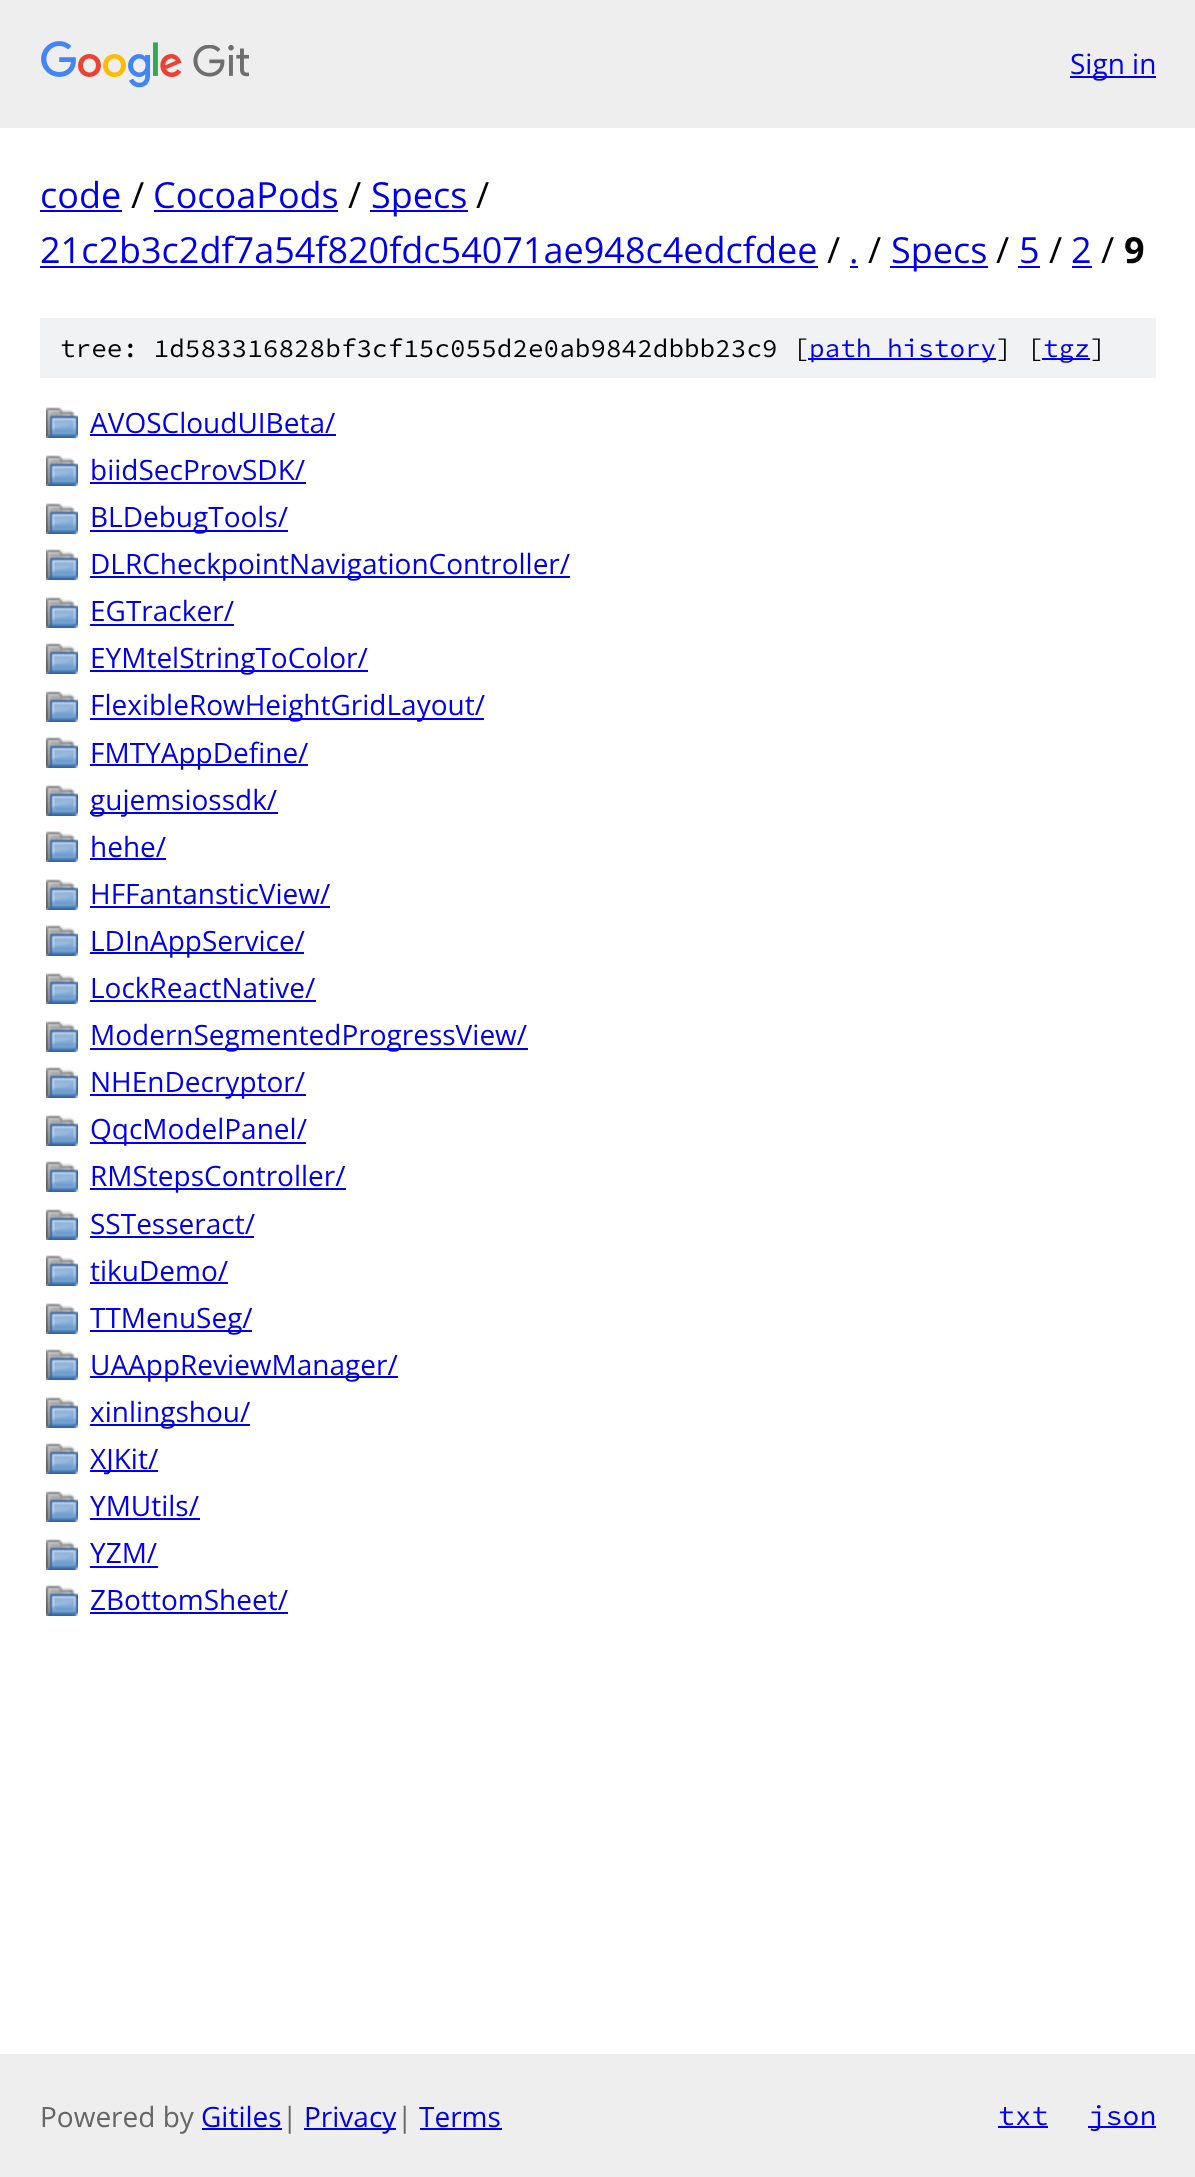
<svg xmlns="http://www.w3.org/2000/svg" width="1195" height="2177">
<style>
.a{font:28px Open Sans;fill:#00e}
.b{font:36px Open Sans;fill:#00e}
.c{font:36px Open Sans;fill:#000}
.d{font:bold 36px Open Sans;fill:#000}
.e{font:200 26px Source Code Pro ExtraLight;fill:#000}
.f{font:200 26px Source Code Pro ExtraLight;fill:#00e}
.g{font:28px Open Sans;fill:#666}
.h{font:200 28px Source Code Pro ExtraLight;fill:#00e}
</style>
<rect width="100%" height="100%" fill="#fff"/>
<path fill="#eee" d="M0 0h1195v128H0z"/>
<image href="1.png" x="41" y="41" width="208" height="47"/>
<path fill="#00e" d="M1070 76h86v2H1070z"/>
<path fill="#00e" d="M40 210h82v2H40z"/>
<path fill="#00e" d="M154 210h184v2H154z"/>
<path fill="#00e" d="M370 210h98v2H370z"/>
<path fill="#00e" d="M40 266h778v2H40z"/>
<path fill="#00e" d="M850 266h8v2H850z"/>
<path fill="#00e" d="M890 266h98v2H890z"/>
<path fill="#00e" d="M1018 266h22v2H1018z"/>
<path fill="#00e" d="M1072 266h20v2H1072z"/>
<path fill="#f1f2f3" d="M40 318h1116v60H40z"/>
<path fill="#00e" d="M808 358h188v2H808z"/>
<path fill="#00e" d="M1042 358h48v2H1042z"/>
<image href="2.png" x="46" y="407" width="32" height="31"/>
<path fill="#00e" d="M90 434h246v2H90z"/>
<image href="2.png" x="46" y="455" width="32" height="31"/>
<path fill="#00e" d="M90 482h216v2H90z"/>
<image href="2.png" x="46" y="503" width="32" height="31"/>
<path fill="#00e" d="M90 530h198v2H90z"/>
<image href="2.png" x="46" y="549" width="32" height="31"/>
<path fill="#00e" d="M90 576h480v2H90z"/>
<image href="2.png" x="46" y="597" width="32" height="31"/>
<path fill="#00e" d="M90 624h144v2H90z"/>
<image href="2.png" x="46" y="643" width="32" height="31"/>
<path fill="#00e" d="M90 670h278v2H90z"/>
<image href="2.png" x="46" y="691" width="32" height="31"/>
<path fill="#00e" d="M90 718h394v2H90z"/>
<image href="2.png" x="46" y="737" width="32" height="31"/>
<path fill="#00e" d="M90 764h218v2H90z"/>
<image href="2.png" x="46" y="785" width="32" height="31"/>
<path fill="#00e" d="M90 812h188v2H90z"/>
<image href="2.png" x="46" y="831" width="32" height="31"/>
<path fill="#00e" d="M90 858h76v2H90z"/>
<image href="2.png" x="46" y="879" width="32" height="31"/>
<path fill="#00e" d="M90 906h240v2H90z"/>
<image href="2.png" x="46" y="925" width="32" height="31"/>
<path fill="#00e" d="M90 952h214v2H90z"/>
<image href="2.png" x="46" y="973" width="32" height="31"/>
<path fill="#00e" d="M90 1000h226v2H90z"/>
<image href="2.png" x="46" y="1021" width="32" height="31"/>
<path fill="#00e" d="M90 1048h438v2H90z"/>
<image href="2.png" x="46" y="1067" width="32" height="31"/>
<path fill="#00e" d="M90 1094h216v2H90z"/>
<image href="2.png" x="46" y="1115" width="32" height="31"/>
<path fill="#00e" d="M90 1142h216v2H90z"/>
<image href="2.png" x="46" y="1161" width="32" height="31"/>
<path fill="#00e" d="M90 1188h256v2H90z"/>
<image href="2.png" x="46" y="1209" width="32" height="31"/>
<path fill="#00e" d="M90 1236h164v2H90z"/>
<image href="2.png" x="46" y="1255" width="32" height="31"/>
<path fill="#00e" d="M90 1282h138v2H90z"/>
<image href="2.png" x="46" y="1303" width="32" height="31"/>
<path fill="#00e" d="M90 1330h162v2H90z"/>
<image href="2.png" x="46" y="1349" width="32" height="31"/>
<path fill="#00e" d="M90 1376h308v2H90z"/>
<image href="2.png" x="46" y="1397" width="32" height="31"/>
<path fill="#00e" d="M90 1424h160v2H90z"/>
<image href="2.png" x="46" y="1443" width="32" height="31"/>
<path fill="#00e" d="M90 1470h68v2H90z"/>
<image href="2.png" x="46" y="1491" width="32" height="31"/>
<path fill="#00e" d="M90 1518h110v2H90z"/>
<image href="2.png" x="46" y="1539" width="32" height="31"/>
<path fill="#00e" d="M90 1566h68v2H90z"/>
<image href="2.png" x="46" y="1585" width="32" height="31"/>
<path fill="#00e" d="M90 1612h198v2H90z"/>
<path fill="#eee" d="M0 2054h1195v123H0z"/>
<path fill="#00e" d="M202 2128h80v2H202z"/>
<path fill="#00e" d="M304 2128h92v2H304z"/>
<path fill="#00e" d="M420 2128h82v2H420z"/>
<path fill="#00e" d="M998 2126h50v2H998z"/>
<path fill="#00e" d="M1088 2126h68v2H1088z"/>
<text class="a" x="1070" y="74">Sign in</text>
<text class="b" x="40" y="208">code</text>
<text class="c" x="131" y="208">/</text>
<text class="b" x="153" y="208">CocoaPods</text>
<text class="c" x="348" y="208">/</text>
<text class="b" x="371" y="208">Specs</text>
<text class="c" x="476" y="208">/</text>
<text class="b" x="40" y="263">21c2b3c2df7a54f820fdc54071ae948c4edcfdee</text>
<text class="c" x="827" y="263">/</text>
<text class="b" x="849" y="263">.</text>
<text class="c" x="868" y="263">/</text>
<text class="b" x="891" y="263">Specs</text>
<text class="c" x="996" y="263">/</text>
<text class="b" x="1019" y="263">5</text>
<text class="c" x="1049" y="263">/</text>
<text class="b" x="1071" y="263">2</text>
<text class="c" x="1101" y="263">/</text>
<text class="d" x="1124" y="263">9</text>
<text class="e" x="60" y="357">tree: 1d583316828bf3cf15c055d2e0ab9842dbbb23c9 [</text>
<text class="f" x="809" y="357">path history</text>
<text class="e" x="996" y="357">] [</text>
<text class="f" x="1043" y="357">tgz</text>
<text class="e" x="1090" y="357">]</text>
<text class="a" x="90" y="433">AVOSCloudUIBeta/</text>
<text class="a" x="90" y="480">biidSecProvSDK/</text>
<text class="a" x="90" y="527">BLDebugTools/</text>
<text class="a" x="90" y="574">DLRCheckpointNavigationController/</text>
<text class="a" x="90" y="621">EGTracker/</text>
<text class="a" x="90" y="668">EYMtelStringToColor/</text>
<text class="a" x="90" y="715">FlexibleRowHeightGridLayout/</text>
<text class="a" x="90" y="763">FMTYAppDefine/</text>
<text class="a" x="90" y="810">gujemsiossdk/</text>
<text class="a" x="90" y="857">hehe/</text>
<text class="a" x="90" y="904">HFFantansticView/</text>
<text class="a" x="90" y="951">LDInAppService/</text>
<text class="a" x="90" y="998">LockReactNative/</text>
<text class="a" x="90" y="1045">ModernSegmentedProgressView/</text>
<text class="a" x="90" y="1092">NHEnDecryptor/</text>
<text class="a" x="90" y="1139">QqcModelPanel/</text>
<text class="a" x="90" y="1186">RMStepsController/</text>
<text class="a" x="90" y="1234">SSTesseract/</text>
<text class="a" x="90" y="1281">tikuDemo/</text>
<text class="a" x="90" y="1328">TTMenuSeg/</text>
<text class="a" x="90" y="1375">UAAppReviewManager/</text>
<text class="a" x="90" y="1422">xinlingshou/</text>
<text class="a" x="90" y="1469">XJKit/</text>
<text class="a" x="90" y="1516">YMUtils/</text>
<text class="a" x="90" y="1563">YZM/</text>
<text class="a" x="90" y="1610">ZBottomSheet/</text>
<text class="g" x="40" y="2127">Powered by</text>
<text class="a" x="201" y="2127">Gitiles</text>
<text class="g" x="282" y="2127">|</text>
<text class="a" x="304" y="2127">Privacy</text>
<text class="g" x="397" y="2127">|</text>
<text class="a" x="419" y="2127">Terms</text>
<text class="h" x="998" y="2125">txt</text>
<text class="h" x="1089" y="2125">json</text>
</svg>
